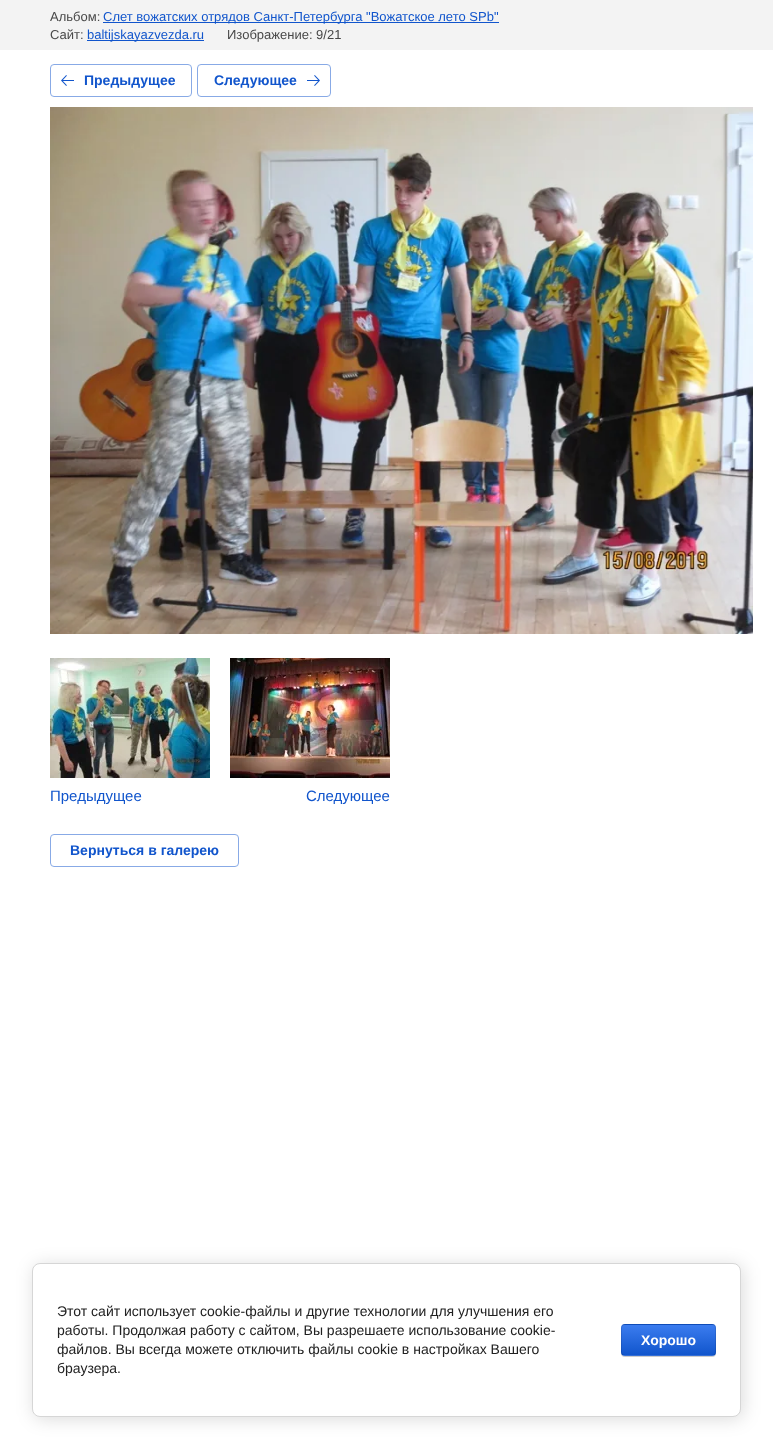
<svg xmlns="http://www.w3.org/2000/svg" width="773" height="1449">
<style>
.a{font:13px Liberation Sans;fill:#484848}
.b{font:13px Liberation Sans;fill:#15c}
.c{font:bold 14px Liberation Sans;fill:#15c}
.d{font:15px Liberation Sans;fill:#15c}
.e{font:14px Liberation Sans;fill:#212121}
.f{font:bold 14px Liberation Sans;fill:#fff}
</style>
<defs>
<clipPath id="clip1"><rect x="621" y="1324" width="95" height="32" rx="4"/></clipPath>
<linearGradient id="g1" gradientUnits="userSpaceOnUse" x1="669" y1="1295" x2="669" y2="1325"><stop offset="0" stop-color="#3b7cef"/><stop offset="1" stop-color="#15c"/></linearGradient>
<linearGradient id="g2" gradientUnits="userSpaceOnUse" x1="669" y1="1325" x2="669" y2="1355"><stop offset="0" stop-color="#3b7cef"/><stop offset="1" stop-color="#15c"/></linearGradient>
<linearGradient id="g3" gradientUnits="userSpaceOnUse" x1="669" y1="1355" x2="669" y2="1385"><stop offset="0" stop-color="#3b7cef"/><stop offset="1" stop-color="#15c"/></linearGradient>
</defs>
<rect width="100%" height="100%" fill="#fff"/>
<path fill="#f3f3f3" d="M0 0h773v50H0z"/>
<path fill="#15c" d="M103 22h396v1H103z"/>
<path fill="#15c" d="M87 40h117v1H87z"/>
<rect fill="none" stroke="#88aae6" x="50.5" y="64.5" width="141" height="32" rx="3.5"/>
<image href="1.png" x="61" y="75" width="13" height="11"/>
<rect fill="none" stroke="#88aae6" x="197.5" y="64.5" width="133" height="32" rx="3.5"/>
<image href="2.png" x="307" y="75" width="13" height="11"/>
<image href="3.png" x="50" y="107" width="703" height="527"/>
<image href="4.png" x="50" y="658" width="160" height="120"/>
<image href="5.png" x="230" y="658" width="160" height="120"/>
<rect fill="none" stroke="#88aae6" x="50.5" y="834.5" width="188" height="32" rx="3.5"/>
<rect fill="#00000024" filter="blur(9px)" x="34" y="1265" width="709" height="154" rx="8"/>
<rect fill="#fff" stroke="#d6d6d6" x="32.5" y="1263.5" width="708" height="153" rx="7.5"/>
<rect fill="#00000033" filter="blur(0.5px)" x="621" y="1325" width="95" height="32" rx="4"/>
<g clip-path="url(#clip1)">
<path fill="url(#g1)" d="M621 1324h95v1H621z"/>
<path fill="url(#g2)" d="M621 1325h95v30H621z"/>
<path fill="url(#g3)" d="M621 1355h95v1H621z"/>
</g>
<rect fill="none" stroke="#0000001a" x="621.5" y="1324.5" width="94" height="31" rx="3.5"/>
<text class="a" x="50" y="21">Альбом:</text>
<text class="b" x="103" y="21">Слет вожатских отрядов Санкт-Петербурга "Вожатское лето SPb"</text>
<text class="a" x="50" y="39">Сайт:</text>
<text class="b" x="87" y="39">baltijskayazvezda.ru</text>
<text class="a" x="227" y="39">Изображение: 9/21</text>
<text class="c" x="84" y="85">Предыдущее</text>
<text class="c" x="214" y="85">Следующее</text>
<text class="d" x="50" y="801">Предыдущее</text>
<text class="d" x="306" y="801">Следующее</text>
<text class="c" x="70" y="855">Вернуться в галерею</text>
<text class="e" x="57" y="1316">Этот сайт использует cookie-файлы и другие технологии для улучшения его</text>
<text class="e" x="57" y="1335">работы. Продолжая работу с сайтом, Вы разрешаете использование cookie-</text>
<text class="e" x="57" y="1354">файлов. Вы всегда можете отключить файлы cookie в настройках Вашего</text>
<text class="e" x="57" y="1373">браузера.</text>
<text class="f" x="641" y="1345">Хорошо</text>
</svg>
